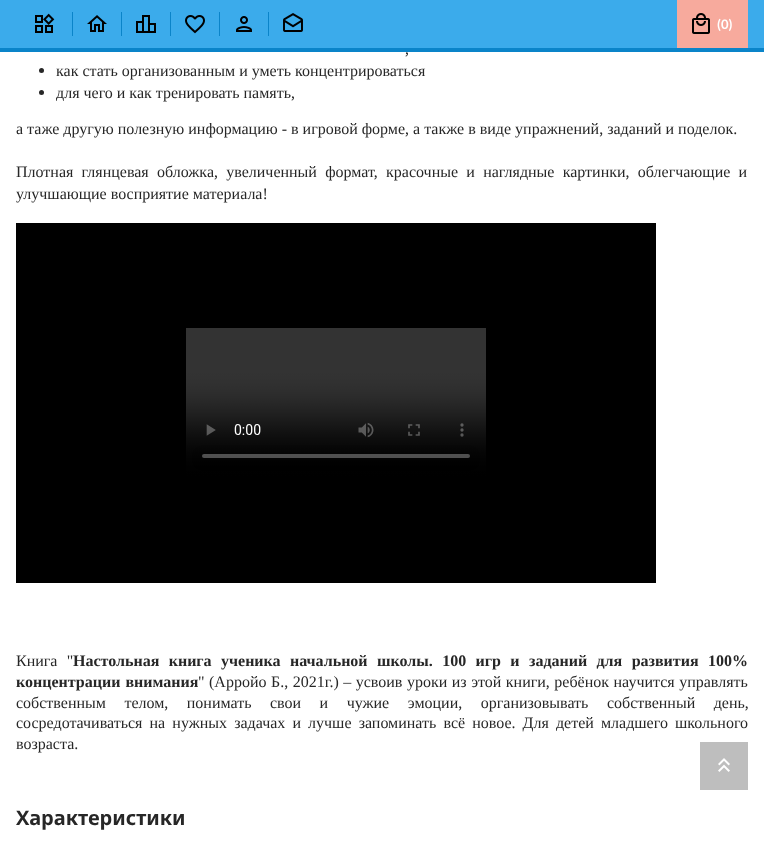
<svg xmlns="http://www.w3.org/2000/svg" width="764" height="850">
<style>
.a{font:bold 13px Lato;fill:#fff}
.b{font:16px Liberation Serif;fill:#272727}
.c{font:bold 16px Liberation Serif;fill:#272727}
.d{font:bold 20px Noto Sans;fill:#272727}
</style>
<rect width="100%" height="100%" fill="#fff"/>
<path fill="#3babeb" d="M0 0h764v48H0z"/>
<path fill="#0a84c9" d="M0 48h764v4H0z"/>
<image href="1.png" x="35" y="13" width="20" height="20"/>
<path fill="#0a84c9" d="M72 12h1v24H72z"/>
<image href="2.png" x="87" y="15" width="20" height="17"/>
<path fill="#0a84c9" d="M121 12h1v24H121z"/>
<image href="3.png" x="136" y="15" width="20" height="18"/>
<path fill="#0a84c9" d="M170 12h1v24H170z"/>
<image href="4.png" x="185" y="15" width="20" height="19"/>
<path fill="#0a84c9" d="M219 12h1v24H219z"/>
<image href="5.png" x="236" y="16" width="16" height="16"/>
<path fill="#0a84c9" d="M268 12h1v24H268z"/>
<image href="6.png" x="283" y="13" width="20" height="19"/>
<path fill="#f7aa9d" d="M677 0h71v48H677z"/>
<image href="7.png" x="692" y="13" width="18" height="21"/>
<circle fill="#272727" cx="41.5" cy="70.5" r="2.5"/>
<circle fill="#272727" cx="41.5" cy="92.5" r="2.5"/>
<image href="8.png" x="16" y="223" width="640" height="360"/>
<path fill="#bebebe" d="M700 742h48v48H700z"/>
<image href="9.png" x="718" y="758" width="12" height="14"/>
<text class="a" x="717" y="29">(0)</text>
<text class="b" x="405" y="54">,</text>
<text class="b" x="56" y="76">как стать организованным и уметь концентрироваться</text>
<text class="b" x="56" y="98">для чего и как тренировать память,</text>
<text class="b" x="16" y="134">а таже другую полезную информацию - в игровой форме, а также в виде упражнений, заданий и поделок.</text>
<text class="b" x="16" y="177" word-spacing="4.25">Плотная глянцевая обложка, увеличенный формат, красочные и наглядные картинки, облегчающие и</text>
<text class="b" x="16" y="199">улучшающие восприятие материала!</text>
<text class="b" x="16" y="666" word-spacing="5.4">Книга "</text>
<text class="c" x="73" y="666" word-spacing="5.4">Настольная книга ученика начальной школы. 100 игр и заданий для развития 100%</text>
<text class="c" x="16" y="687" word-spacing="1">концентрации внимания</text>
<text class="b" x="198" y="687" word-spacing="0.5">" (Арройо Б., 2021г.) – усвоив уроки из этой книги, ребёнок научится управлять</text>
<text class="b" x="16" y="708" word-spacing="14.5">собственным телом, понимать свои и чужие эмоции, организовывать собственный день,</text>
<text class="b" x="16" y="728" word-spacing="3.1">сосредотачиваться на нужных задачах и лучше запоминать всё новое. Для детей младшего школьного</text>
<text class="b" x="16" y="749">возраста.</text>
<text class="d" x="16" y="825">Характеристики</text>
</svg>
